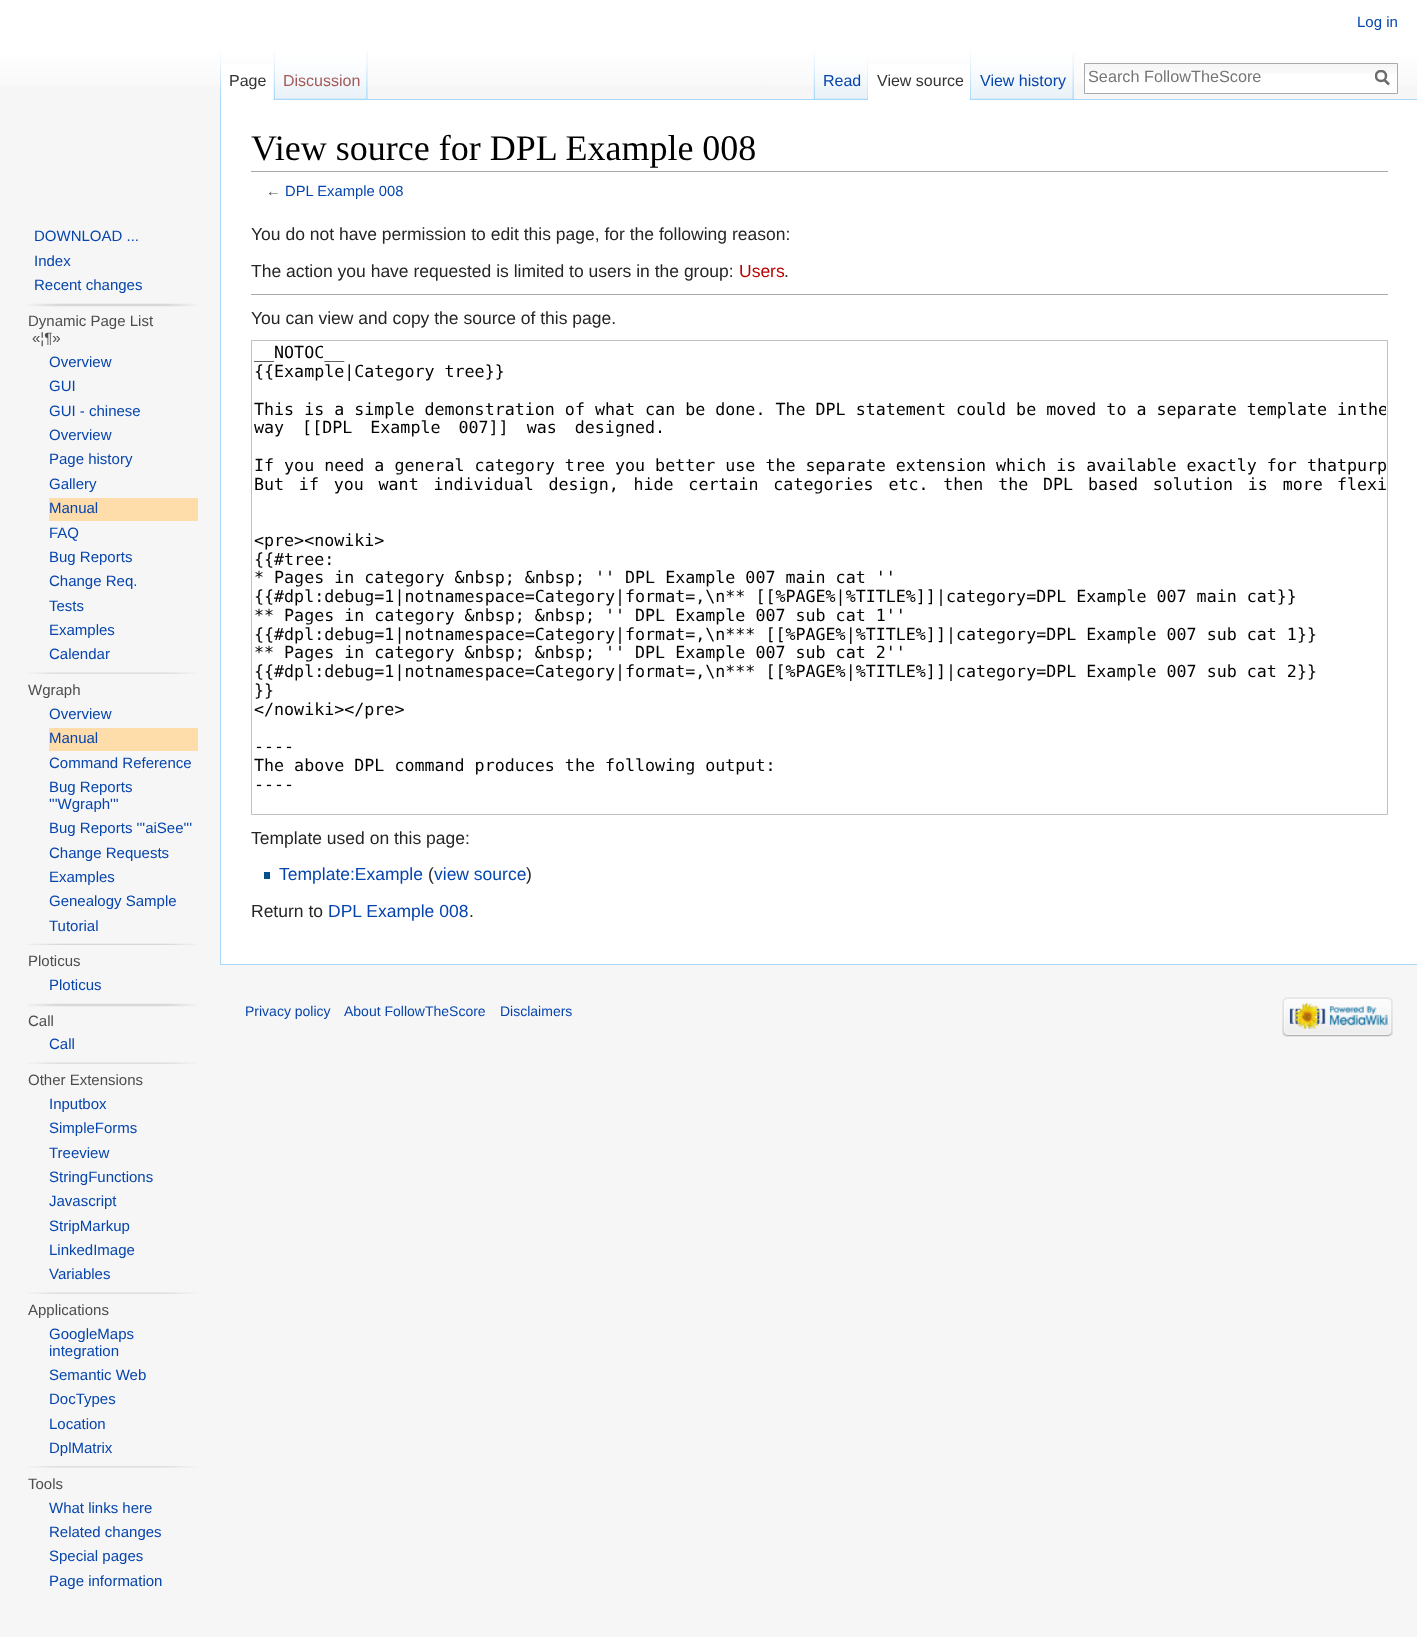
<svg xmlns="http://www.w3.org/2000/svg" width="1417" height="1637">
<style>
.a{font:15px Liberation Sans;fill:#0645ad}
.b{font:16px Liberation Sans;fill:#333}
.c{font:16px Liberation Sans;fill:#a55858}
.d{font:16px Liberation Sans;fill:#0645ad}
.e{font:16.25px Liberation Sans;fill:#757575}
.f{font:15px Liberation Sans;fill:#4d4d4d}
.g{font:36px Liberation Serif;fill:#000}
.h{font:14.75px Liberation Sans;fill:#545454}
.i{font:14.75px Liberation Sans;fill:#0645ad}
.j{font:17.5px Liberation Sans;fill:#252525}
.k{font:17.5px Liberation Sans;fill:#ba0000}
.l{font:16.67px DejaVu Sans Mono;fill:#000}
.m{font:17.5px Liberation Sans;fill:#0645ad}
.n{font:14px Liberation Sans;fill:#0645ad}
</style>
<defs>
<linearGradient id="g1" gradientUnits="userSpaceOnUse" x1="709" y1="0" x2="709" y2="100"><stop offset="0.5" stop-color="#fff"/><stop offset="1" stop-color="#f6f6f6"/></linearGradient>
<clipPath id="clip1"><path d="M1375 70h15v16H1375z"/></clipPath>
<clipPath id="clip2"><path d="M253 341h1133v473H253z"/></clipPath>
</defs>
<rect width="100%" height="100%" fill="#f6f6f6"/>
<path fill="url(#g1)" d="M0 0h1417v86H0z"/>
<image href="1.png" x="220" y="50" width="1" height="49"/>
<path fill="#fff" d="M221 64h53v36H221z"/>
<image href="2.png" x="273" y="50" width="2" height="50"/>
<path fill="#f3f3f3" d="M367 50h1v50H367z"/>
<image href="3.png" x="275" y="50" width="93" height="50"/>
<image href="4.png" x="366" y="52" width="2" height="48"/>
<image href="5.png" x="813" y="50" width="2" height="49"/>
<image href="6.png" x="1073" y="52" width="1" height="47"/>
<path fill="#a7d7f9" d="M368 99h1049v1H368z"/>
<image href="7.png" x="815" y="50" width="53" height="50"/>
<image href="8.png" x="867" y="53" width="1" height="47"/>
<path fill="#fff" d="M868 64h104v36H868z"/>
<image href="9.png" x="970" y="50" width="2" height="50"/>
<image href="10.png" x="971" y="50" width="103" height="50"/>
<image href="11.png" x="1072" y="53" width="2" height="47"/>
<path fill="#fff" d="M1085 74h312v19H1085z"/>
<image href="12.png" x="1085" y="64" width="312" height="10"/>
<path fill="none" stroke="#aaa" d="M1084.5 63.5h313v30H1084.5z"/>
<path fill="none" stroke="#6c6c6c" stroke-width="2.5" d="M1389 84.5l-5-5"/>
<g clip-path="url(#clip1)">
<circle fill="none" stroke="#6c6c6c" stroke-width="2.5" cx="1381" cy="76" r="5"/>
</g>
<image href="13.png" x="27" y="303" width="170" height="4"/>
<path fill="#fda" d="M49 498h149v23H49z"/>
<image href="14.png" x="27" y="672" width="170" height="2"/>
<path fill="#fda" d="M49 728h149v23H49z"/>
<image href="15.png" x="27" y="943" width="170" height="2"/>
<image href="13.png" x="27" y="1003" width="170" height="4"/>
<image href="14.png" x="27" y="1062" width="170" height="2"/>
<image href="14.png" x="27" y="1292" width="170" height="2"/>
<image href="16.png" x="27" y="1466" width="170" height="2"/>
<path fill="#fff" d="M221 100h1196v864H221z"/>
<path fill="#a7d7f9" d="M220 964h1197v1H220z"/>
<path fill="#a7d7f9" d="M220 99h1v866H220z"/>
<path fill="#aaa" d="M251 171h1137v1H251z"/>
<path fill="#aaa" d="M251 294h1137v1H251z"/>
<path fill="none" stroke="#c0c0c0" d="M251.5 340.5h1136v474H251.5z"/>
<path fill="#00528c" d="M264 872h6v7H264z"/>
<image href="17.png" x="1282" y="997" width="111" height="40"/>
<text class="a" x="1357" y="27">Log in</text>
<text class="b" x="229" y="86">Page</text>
<text class="c" x="283" y="86">Discussion</text>
<text class="d" x="823" y="86">Read</text>
<text class="b" x="877" y="86">View source</text>
<text class="d" x="980" y="86">View history</text>
<text class="e" x="1088" y="82">Search FollowTheScore</text>
<text class="a" x="34" y="241">DOWNLOAD ...</text>
<text class="a" x="34" y="266">Index</text>
<text class="a" x="34" y="290">Recent changes</text>
<text class="f" x="28" y="326">Dynamic Page List</text>
<text class="f" x="32" y="343">«¦¶»</text>
<text class="a" x="49" y="367">Overview</text>
<text class="a" x="49" y="391">GUI</text>
<text class="a" x="49" y="416">GUI - chinese</text>
<text class="a" x="49" y="440">Overview</text>
<text class="a" x="49" y="464">Page history</text>
<text class="a" x="49" y="489">Gallery</text>
<text class="a" x="49" y="513">Manual</text>
<text class="a" x="49" y="538">FAQ</text>
<text class="a" x="49" y="562">Bug Reports</text>
<text class="a" x="49" y="586">Change Req.</text>
<text class="a" x="49" y="611">Tests</text>
<text class="a" x="49" y="635">Examples</text>
<text class="a" x="49" y="659">Calendar</text>
<text class="f" x="28" y="695">Wgraph</text>
<text class="a" x="49" y="719">Overview</text>
<text class="a" x="49" y="743">Manual</text>
<text class="a" x="49" y="768">Command Reference</text>
<text class="a" x="49" y="792">Bug Reports</text>
<text class="a" x="49" y="809">'''Wgraph'''</text>
<text class="a" x="49" y="833">Bug Reports '''aiSee'''</text>
<text class="a" x="49" y="858">Change Requests</text>
<text class="a" x="49" y="882">Examples</text>
<text class="a" x="49" y="906">Genealogy Sample</text>
<text class="a" x="49" y="931">Tutorial</text>
<text class="f" x="28" y="966">Ploticus</text>
<text class="a" x="49" y="990">Ploticus</text>
<text class="f" x="28" y="1026">Call</text>
<text class="a" x="49" y="1049">Call</text>
<text class="f" x="28" y="1085">Other Extensions</text>
<text class="a" x="49" y="1109">Inputbox</text>
<text class="a" x="49" y="1133">SimpleForms</text>
<text class="a" x="49" y="1158">Treeview</text>
<text class="a" x="49" y="1182">StringFunctions</text>
<text class="a" x="49" y="1206">Javascript</text>
<text class="a" x="49" y="1231">StripMarkup</text>
<text class="a" x="49" y="1255">LinkedImage</text>
<text class="a" x="49" y="1279">Variables</text>
<text class="f" x="28" y="1315">Applications</text>
<text class="a" x="49" y="1339">GoogleMaps</text>
<text class="a" x="49" y="1356">integration</text>
<text class="a" x="49" y="1380">Semantic Web</text>
<text class="a" x="49" y="1404">DocTypes</text>
<text class="a" x="49" y="1429">Location</text>
<text class="a" x="49" y="1453">DplMatrix</text>
<text class="f" x="28" y="1489">Tools</text>
<text class="a" x="49" y="1513">What links here</text>
<text class="a" x="49" y="1537">Related changes</text>
<text class="a" x="49" y="1561">Special pages</text>
<text class="a" x="49" y="1586">Page information</text>
<text class="g" x="251" y="160">View source for DPL Example 008</text>
<text class="h" x="266" y="196">←</text>
<text class="i" x="285" y="196">DPL Example 008</text>
<text class="j" x="251" y="240">You do not have permission to edit this page, for the following reason:</text>
<text class="j" x="251" y="277">The action you have requested is limited to users in the group:</text>
<text class="k" x="739" y="277">Users</text>
<text class="j" x="784" y="277">.</text>
<text class="j" x="251" y="324">You can view and copy the source of this page.</text>
<text class="l" x="254" y="358">__NOTOC__</text>
<text class="l" x="254" y="377">{{Example|Category tree}}</text>
<text class="l" x="254" y="415">This is a simple demonstration of what can be done. The DPL statement could be moved to a separate template in</text>
<g clip-path="url(#clip2)">
<text class="l" x="1358" y="415">the</text>
</g>
<text class="l" x="254" y="433" word-spacing="8">way [[DPL Example 007]] was designed.</text>
<text class="l" x="254" y="471">If you need a general category tree you better use the separate extension which is available exactly for that</text>
<g clip-path="url(#clip2)">
<text class="l" x="1347" y="471">purp</text>
</g>
<text class="l" x="254" y="490" word-spacing="4.75">But if you want individual design, hide certain categories etc. then the DPL based solution is more</text>
<text class="l" x="1337" y="490">flexi</text>
<text class="l" x="254" y="546">&lt;pre&gt;&lt;nowiki&gt;</text>
<text class="l" x="254" y="565">{{#tree:</text>
<text class="l" x="254" y="583">* Pages in category &amp;nbsp; &amp;nbsp; '' DPL Example 007 main cat ''</text>
<text class="l" x="254" y="602">{{#dpl:debug=1|notnamespace=Category|format=,\n** [[%PAGE%|%TITLE%]]|category=DPL Example 007 main cat}}</text>
<text class="l" x="254" y="621">** Pages in category &amp;nbsp; &amp;nbsp; '' DPL Example 007 sub cat 1''</text>
<text class="l" x="254" y="640">{{#dpl:debug=1|notnamespace=Category|format=,\n*** [[%PAGE%|%TITLE%]]|category=DPL Example 007 sub cat 1}}</text>
<text class="l" x="254" y="658">** Pages in category &amp;nbsp; &amp;nbsp; '' DPL Example 007 sub cat 2''</text>
<text class="l" x="254" y="677">{{#dpl:debug=1|notnamespace=Category|format=,\n*** [[%PAGE%|%TITLE%]]|category=DPL Example 007 sub cat 2}}</text>
<text class="l" x="254" y="696">}}</text>
<text class="l" x="254" y="715">&lt;/nowiki&gt;&lt;/pre&gt;</text>
<text class="l" x="254" y="752">----</text>
<text class="l" x="254" y="771">The above DPL command produces the following output:</text>
<text class="l" x="254" y="790">----</text>
<text class="j" x="251" y="844">Template used on this page:</text>
<text class="m" x="279" y="880">Template:Example</text>
<text class="j" x="428" y="880">(</text>
<text class="m" x="434" y="880">view source</text>
<text class="j" x="526" y="880">)</text>
<text class="j" x="251" y="917">Return to</text>
<text class="m" x="328" y="917">DPL Example 008</text>
<text class="j" x="469" y="917">.</text>
<text class="n" x="245" y="1016">Privacy policy</text>
<text class="n" x="344" y="1016">About FollowTheScore</text>
<text class="n" x="500" y="1016">Disclaimers</text>
</svg>
